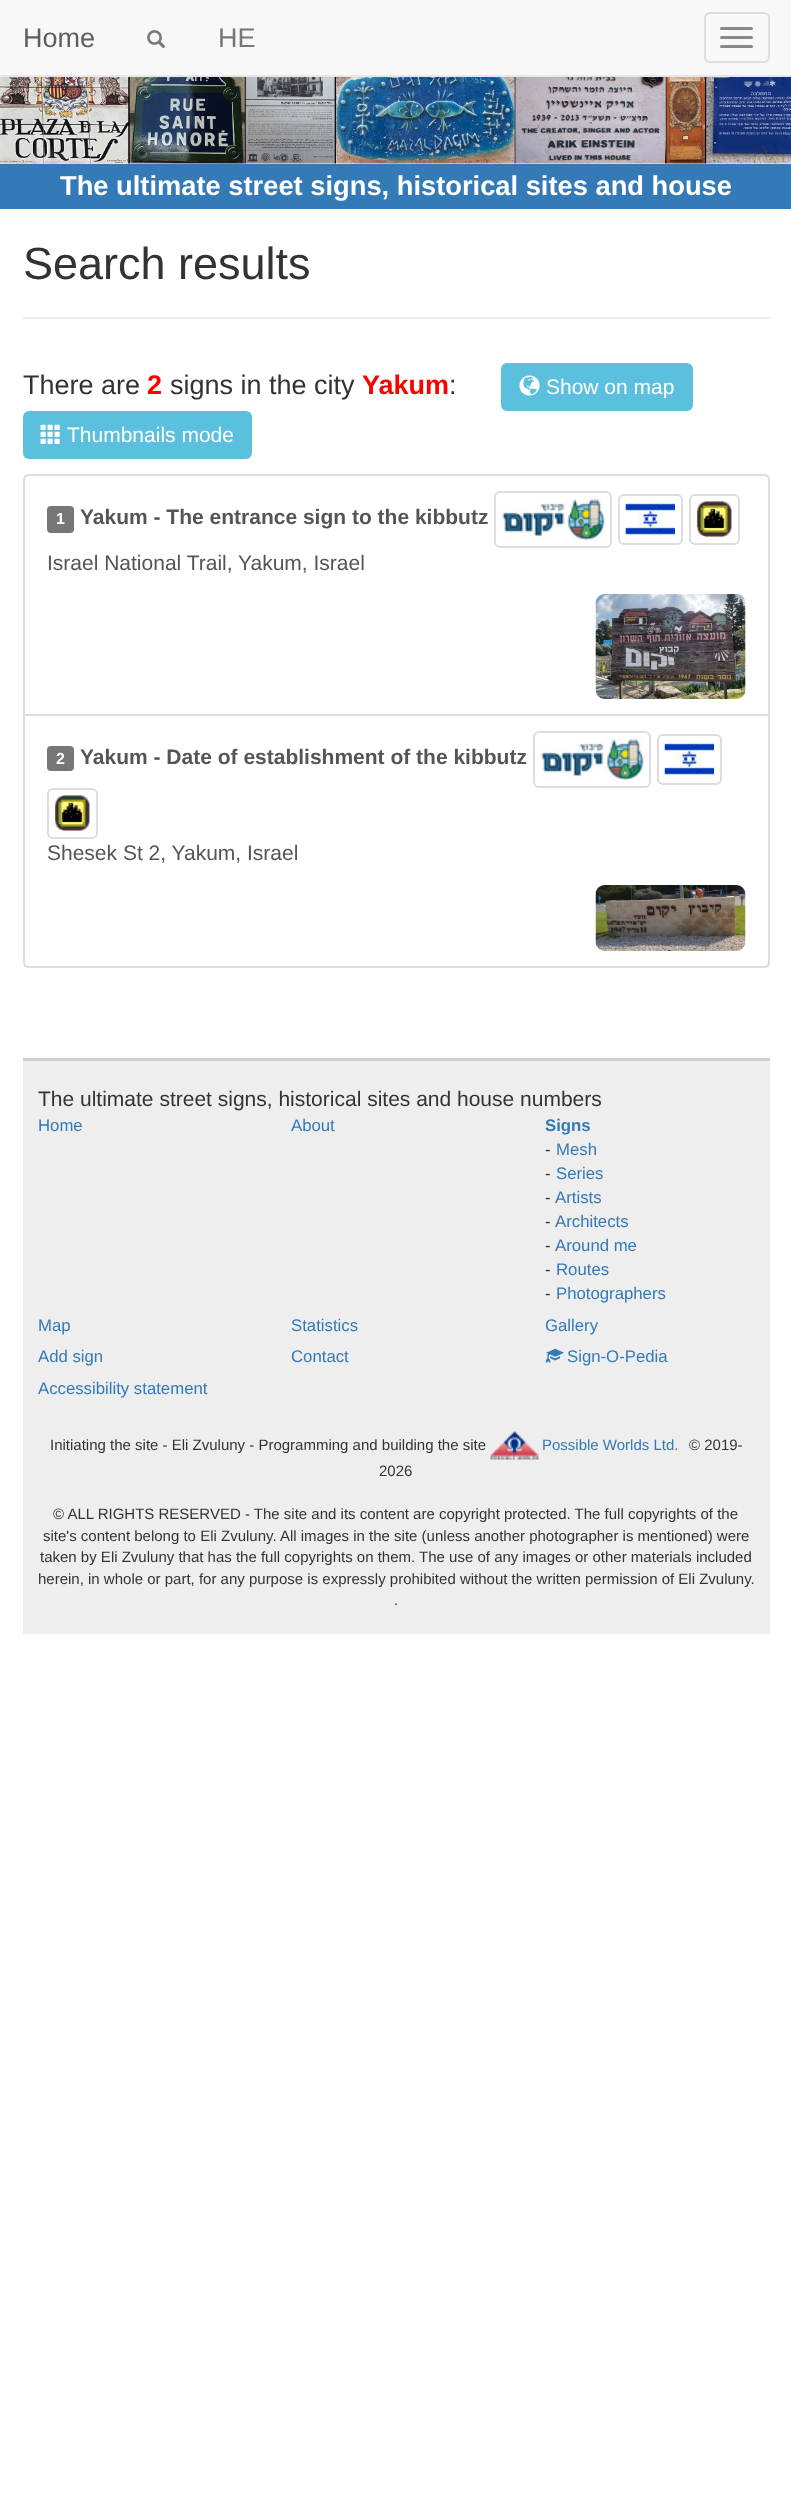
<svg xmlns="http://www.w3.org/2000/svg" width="791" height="2504">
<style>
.a{font:27px Liberation Sans;fill:#5e5e5e}
.b{font:27px Liberation Sans;fill:#777}
.c{font:bold 27.3px Liberation Sans;fill:#fff}
.d{font:45px Liberation Sans;fill:#333}
.e{font:27px Liberation Sans;fill:#333}
.f{font:bold 27px Liberation Sans;fill:#f00}
.g{font:21px Liberation Sans;fill:#fff}
.h{font:bold 16px Liberation Sans;fill:#fff}
.i{font:bold 21px Liberation Sans;fill:#555}
.j{font:21px Liberation Sans;fill:#555}
.k{font:21px Liberation Sans;fill:#333}
.l{font:16.75px Liberation Sans;fill:#337ab7}
.m{font:bold 16.75px Liberation Sans;fill:#337ab7}
.n{font:16.75px Liberation Sans;fill:#333}
.o{font:15px Liberation Sans;fill:#333}
.p{font:15px Liberation Sans;fill:#337ab7}
</style>
<rect width="100%" height="100%" fill="#fff"/>
<path fill="#f8f8f8" d="M0 0h791v75H0z"/>
<path fill="#e7e7e7" d="M0 75h791v2H0z"/>
<image href="1.png" x="147" y="30" width="19" height="19"/>
<rect fill="none" stroke="#ddd" stroke-width="2" x="705" y="13" width="64" height="49" rx="5"/>
<rect fill="#888" x="720" y="27" width="33" height="3" rx="1.5"/>
<rect fill="#888" x="720" y="36" width="33" height="3" rx="1.5"/>
<rect fill="#888" x="720" y="45" width="33" height="3" rx="1.5"/>
<image href="2.png" x="0" y="77" width="791" height="87"/>
<path fill="#337ab7" d="M0 164h791v45H0z"/>
<path fill="#eee" d="M23 317h747v2H23z"/>
<rect fill="#5bc0de" x="501" y="363" width="192" height="48" rx="6"/>
<image href="3.png" x="519" y="375" width="21" height="21"/>
<rect fill="#5bc0de" x="23" y="411" width="229" height="48" rx="6"/>
<image href="4.png" x="40" y="424" width="20" height="20"/>
<path fill="none" stroke="#ddd" stroke-width="2" d="M29 475h735c3 0 5 2 5 5v235h-745v-235c0-3 2-5 5-5z"/>
<rect fill="#777" x="47" y="506" width="27" height="27" rx="4"/>
<rect fill="none" stroke="#ddd" stroke-width="2" x="495" y="492" width="116" height="55" rx="5"/>
<image href="5.png" x="501" y="498" width="104" height="42"/>
<rect fill="none" stroke="#ddd" stroke-width="2" x="619" y="495" width="63" height="49" rx="5"/>
<image href="6.png" x="625" y="501" width="50" height="36"/>
<rect fill="none" stroke="#ddd" stroke-width="2" x="690" y="495" width="49" height="49" rx="5"/>
<image href="7.png" x="696" y="501" width="36" height="36"/>
<image href="8.png" x="595" y="594" width="151" height="105"/>
<path fill="#fff" stroke="#ddd" stroke-width="2" d="M24 715h745v247c0 3-2 5-5 5h-735c-3 0-5-2-5-5z"/>
<rect fill="#777" x="47" y="746" width="27" height="25" rx="4"/>
<rect fill="none" stroke="#ddd" stroke-width="2" x="534" y="732" width="116" height="55" rx="5"/>
<image href="9.png" x="540" y="738" width="104" height="42"/>
<rect fill="none" stroke="#ddd" stroke-width="2" x="658" y="735" width="63" height="49" rx="5"/>
<image href="6.png" x="664" y="741" width="50" height="36"/>
<rect fill="none" stroke="#ddd" stroke-width="2" x="48" y="789" width="49" height="49" rx="5"/>
<image href="10.png" x="54" y="795" width="36" height="36"/>
<image href="11.png" x="595" y="885" width="151" height="66"/>
<path fill="#eee" d="M23 1061h747v573H23z"/>
<path fill="#d1d1d1" d="M23 1058h747v3H23z"/>
<image href="12.png" x="546" y="1348" width="18" height="16"/>
<image href="13.png" x="490" y="1431" width="49" height="29"/>
<text class="a" x="23" y="47">Home</text>
<text class="b" x="218" y="47">HE</text>
<text class="c" x="60" y="195">The ultimate street signs, historical sites and house</text>
<text class="d" x="23" y="279">Search results</text>
<text class="e" x="23" y="394">There are</text>
<text class="f" x="147" y="394">2</text>
<text class="e" x="170" y="394">signs in the city</text>
<text class="f" x="362" y="394">Yakum</text>
<text class="e" x="449" y="394">:</text>
<text class="g" x="546" y="394">Show on map</text>
<text class="g" x="67" y="442">Thumbnails mode</text>
<text class="h" x="56" y="524">1</text>
<text class="i" x="80" y="524">Yakum - The entrance sign to the kibbutz</text>
<text class="j" x="47" y="570">Israel National Trail, Yakum, Israel</text>
<text class="h" x="56" y="764">2</text>
<text class="i" x="80" y="764">Yakum - Date of establishment of the kibbutz</text>
<text class="j" x="47" y="860">Shesek St 2, Yakum, Israel</text>
<text class="k" x="38" y="1106">The ultimate street signs, historical sites and house numbers</text>
<text class="l" x="38" y="1131">Home</text>
<text class="l" x="291" y="1131">About</text>
<text class="m" x="545" y="1131">Signs</text>
<text class="n" x="545" y="1155">-</text>
<text class="l" x="556" y="1155">Mesh</text>
<text class="n" x="545" y="1179">-</text>
<text class="l" x="556" y="1179">Series</text>
<text class="n" x="545" y="1203">-</text>
<text class="l" x="555" y="1203">Artists</text>
<text class="n" x="545" y="1227">-</text>
<text class="l" x="555" y="1227">Architects</text>
<text class="n" x="545" y="1251">-</text>
<text class="l" x="555" y="1251">Around me</text>
<text class="n" x="545" y="1275">-</text>
<text class="l" x="556" y="1275">Routes</text>
<text class="n" x="545" y="1299">-</text>
<text class="l" x="556" y="1299">Photographers</text>
<text class="l" x="38" y="1331">Map</text>
<text class="l" x="291" y="1331">Statistics</text>
<text class="l" x="545" y="1331">Gallery</text>
<text class="l" x="38" y="1362">Add sign</text>
<text class="l" x="291" y="1362">Contact</text>
<text class="l" x="567" y="1362">Sign-O-Pedia</text>
<text class="l" x="38" y="1394">Accessibility statement</text>
<text class="o" x="50" y="1450">Initiating the site - Eli Zvuluny - Programming and building the site</text>
<text class="p" x="542" y="1450">Possible Worlds Ltd.</text>
<text class="o" x="689" y="1450">© 2019-</text>
<text class="o" x="379" y="1476">2026</text>
<text class="o" x="53" y="1519">© ALL RIGHTS RESERVED - The site and its content are copyright protected. The full copyrights of the</text>
<text class="o" x="43" y="1541">site's content belong to Eli Zvuluny. All images in the site (unless another photographer is mentioned) were</text>
<text class="o" x="40" y="1562">taken by Eli Zvuluny that has the full copyrights on them. The use of any images or other materials included</text>
<text class="o" x="38" y="1584">herein, in whole or part, for any purpose is expressly prohibited without the written permission of Eli Zvuluny.</text>
<text class="o" x="394" y="1605">.</text>
</svg>
